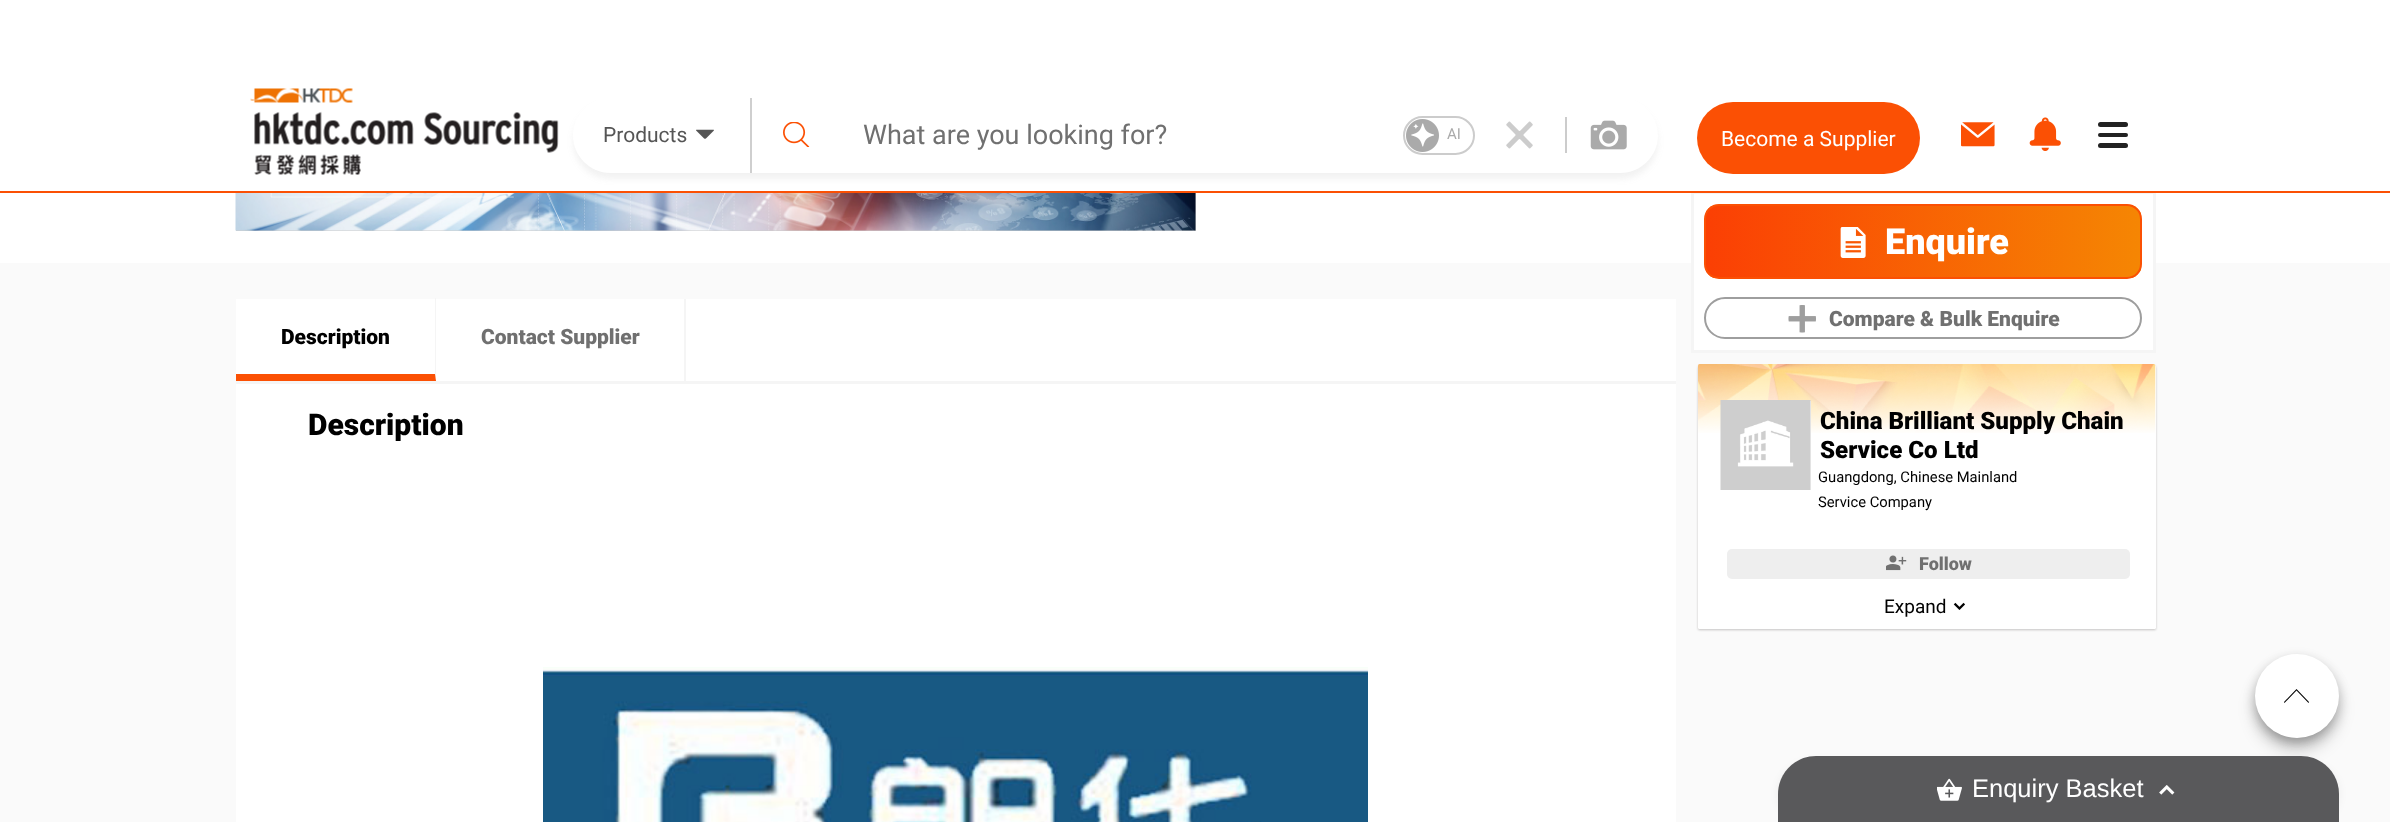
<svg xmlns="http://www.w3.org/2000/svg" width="2390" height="822">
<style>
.a{font:21px Roboto;fill:#555}
.b{font:27px Roboto;fill:#707070}
.c{font:15px Roboto;fill:#aaa}
.d{font:21px Roboto;fill:#fff}
.e{font:900 36px Roboto;fill:#fff}
.f{font:900 21px Roboto;fill:#707070}
.g{font:900 21px Roboto;fill:#000}
.h{font:900 30px Roboto;fill:#000}
.i{font:900 24.1px Roboto;fill:#000}
.j{font:14.75px Roboto;fill:#000}
.k{font:900 18px Roboto;fill:#707070}
.l{font:19px Roboto;fill:#000}
.m{font:25.5px Liberation Sans;fill:#fff}
</style>
<defs>
<clipPath id="clip1"><path d="M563 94h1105v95h-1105zm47.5 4h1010c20.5 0 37.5 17 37.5 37.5c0 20.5-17 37.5-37.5 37.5h-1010c-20.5 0-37.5-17-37.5-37.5c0-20.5 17-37.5 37.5-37.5z" clip-rule="evenodd"/></clipPath>
<clipPath id="clip2"><rect x="1704" y="204" width="438" height="75" rx="15"/></clipPath>
<linearGradient id="g1" gradientUnits="userSpaceOnUse" x1="2141" y1="242" x2="1705" y2="241"><stop offset="0" stop-color="#f58603"/><stop offset="1" stop-color="#fb3f04"/></linearGradient>
</defs>
<rect width="100%" height="100%" fill="#fff"/>
<path fill="#fafafa" d="M0 263h2390v559H0z"/>
<path fill="#fff" d="M1694 263h459v87H1694z"/>
<path fill="none" stroke="#f5f5f5" stroke-width="3" d="M1692.5 192.5h462v159H1692.5z"/>
<path fill="#fb5004" d="M0 191h2390v2H0z"/>
<image href="1.png" x="250" y="88" width="309" height="87"/>
<g clip-path="url(#clip1)">
<rect fill="#7f7f7f1a" filter="blur(3px)" x="573" y="104" width="1085" height="75" rx="37.5"/>
</g>
<path fill="#cfcfcf" d="M750 98h2v75H750z"/>
<image href="2.png" x="696" y="129" width="18" height="10"/>
<image href="3.png" x="783" y="122" width="27" height="25"/>
<rect fill="none" stroke="#ccc" stroke-width="2" x="1404" y="117" width="70" height="37" rx="18.5"/>
<image href="4.png" x="1406" y="119" width="33" height="33"/>
<image href="5.png" x="1506" y="121" width="27" height="28"/>
<path fill="#ccc" d="M1565 117h2v36H1565z"/>
<image href="6.png" x="1590" y="120" width="37" height="30"/>
<rect fill="#fb5004" x="1697" y="102" width="223" height="72" rx="36"/>
<image href="7.png" x="1961" y="122" width="34" height="25"/>
<image href="8.png" x="2029" y="117" width="32" height="34"/>
<rect fill="#222" x="2098" y="122" width="30" height="5" rx="2.5"/>
<rect fill="#222" x="2098" y="133" width="30" height="4" rx="2"/>
<rect fill="#222" x="2098" y="143" width="30" height="5" rx="2.5"/>
<path fill="#ccc" d="M236 193h960v38H236z"/>
<image href="9.png" x="235" y="193" width="961" height="38"/>
<g clip-path="url(#clip2)">
<path fill="url(#g1)" d="M1706 206h435v72H1706z"/>
</g>
<rect fill="none" stroke="#fb5004" stroke-width="2" x="1705" y="205" width="436" height="73" rx="14"/>
<image href="10.png" x="1840" y="227" width="26" height="31"/>
<rect fill="none" stroke="#9e9e9e" stroke-width="2" x="1705" y="298" width="436" height="40" rx="20"/>
<image href="11.png" x="1788" y="305" width="28" height="28"/>
<path fill="#fff" d="M236 299h1440v523H236z"/>
<path fill="#f5f5f5" d="M236 381h1440v3H236z"/>
<path fill="#f5f5f5" d="M436 298v83l-1-7v-76z"/>
<path fill="#fb5004" d="M436 381h-200v-7h199z"/>
<path fill="#f5f5f5" d="M684 299h2v82H684z"/>
<image href="12.png" x="543" y="667" width="825" height="155"/>
<rect fill="#07000138" filter="blur(1px)" x="1698" y="366" width="458" height="264" rx="1.5"/>
<rect fill="#fff" x="1698" y="365" width="458" height="264" rx="1.5"/>
<image href="13.png" x="1698" y="364" width="458" height="69"/>
<path fill="#fff" d="M1721 401h90v32H1721z"/>
<image href="14.png" x="1720" y="400" width="91" height="90"/>
<rect fill="#eee" x="1727" y="549" width="403" height="30" rx="5"/>
<image href="15.png" x="1886" y="555" width="21" height="16"/>
<image href="16.png" x="1953" y="602" width="12" height="8"/>
<rect fill="#0000001f" filter="blur(5px)" x="2252" y="656" width="90" height="90" rx="45"/>
<rect fill="#00000024" filter="blur(7.5px)" x="2253" y="665" width="87" height="87" rx="43.5"/>
<rect fill="#00000033" filter="blur(4px)" x="2259" y="666" width="75" height="75" rx="37.5"/>
<circle fill="#fff" cx="2297" cy="696" r="42"/>
<path fill="#000" d="M2284 702l12.5-13l12.5 13l-.5 1l-12-12.5l-12 12.5z"/>
<rect fill="#0000000f" filter="blur(4px)" x="1778" y="761" width="561" height="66" rx="38"/>
<path fill="#59595b" d="M1816 756h485c21 0 38 17 38 38v28h-561v-28c0-21 17-38 38-38z"/>
<image href="17.png" x="1937" y="778" width="25" height="23"/>
<image href="18.png" x="2159" y="785" width="16" height="10"/>
<text class="a" x="603" y="142">Products</text>
<text class="b" x="863" y="144">What are you looking for?</text>
<text class="c" x="1447" y="139">AI</text>
<text class="d" x="1721" y="146">Become a Supplier</text>
<text class="e" x="1885" y="254">Enquire</text>
<text class="f" x="1829" y="326">Compare &amp; Bulk Enquire</text>
<text class="g" x="281" y="344">Description</text>
<text class="f" x="481" y="344">Contact Supplier</text>
<text class="h" x="308" y="435">Description</text>
<text class="i" x="1820" y="429">China Brilliant Supply Chain</text>
<text class="i" x="1820" y="458">Service Co Ltd</text>
<text class="j" x="1818" y="482">Guangdong, Chinese Mainland</text>
<text class="j" x="1818" y="507">Service Company</text>
<text class="k" x="1919" y="570">Follow</text>
<text class="l" x="1884" y="613">Expand</text>
<text class="m" x="1972" y="797">Enquiry Basket</text>
</svg>
